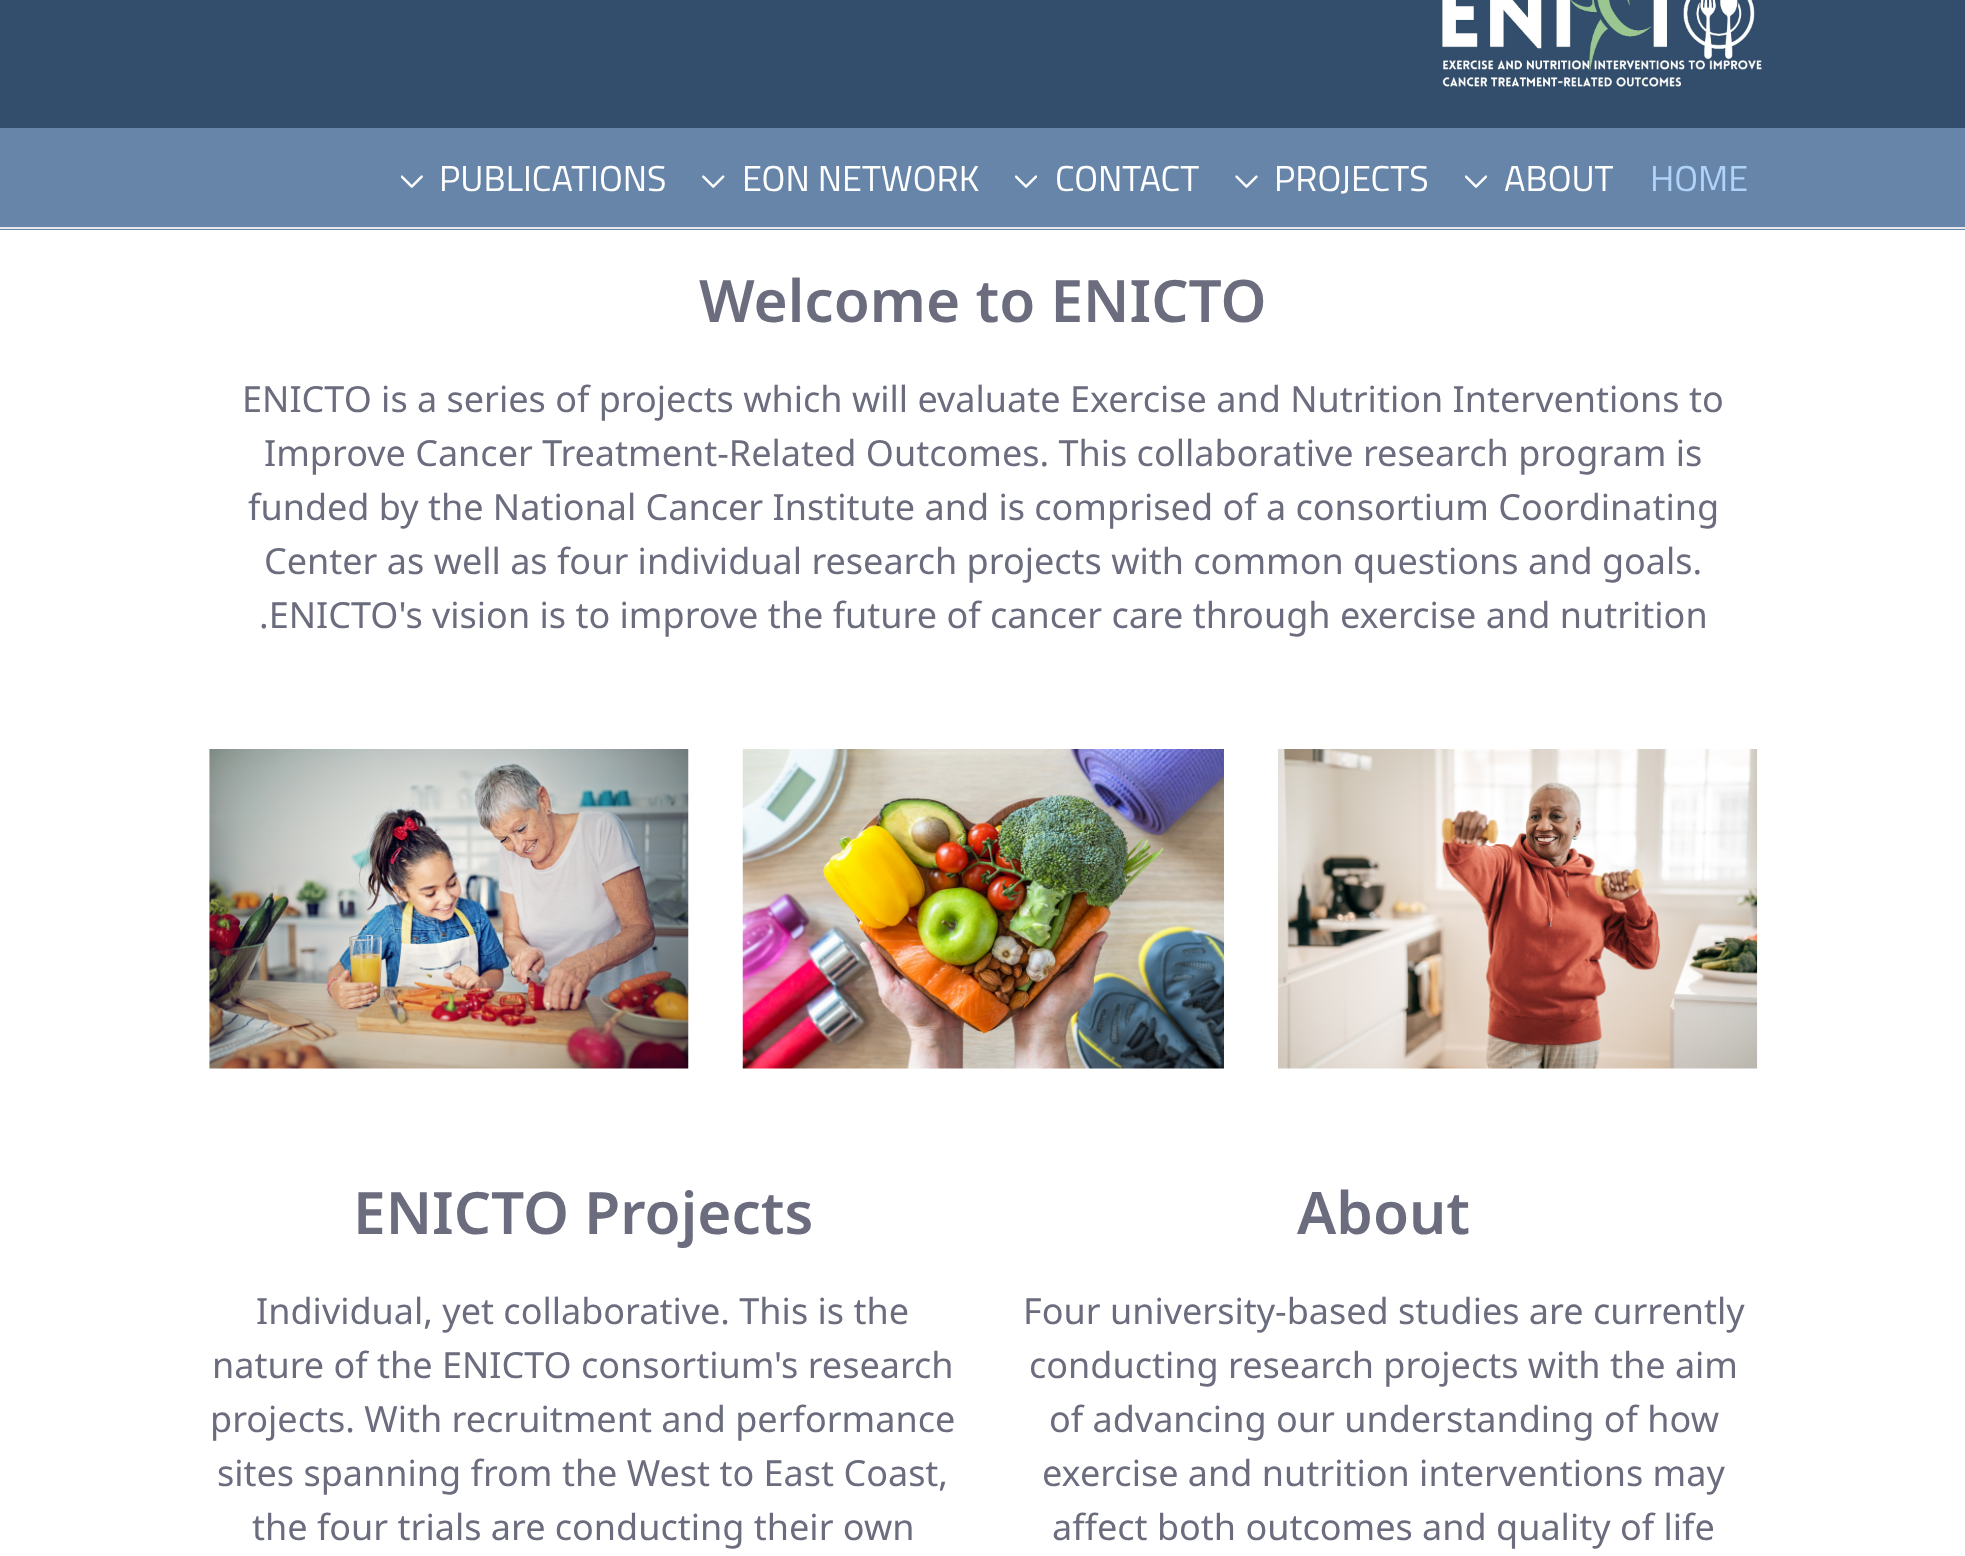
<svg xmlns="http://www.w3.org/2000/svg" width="1965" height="1556">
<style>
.a{font:36px Titillium Web;fill:#fff}
.b{font:36px Titillium Web;fill:#b0d3fa}
.c{font:600 58.5px Noto Sans;fill:#6b6c7e}
.d{font:36px Noto Sans;fill:#6b6c7e}
</style>
<defs>
<clipPath id="clip1"><path d="M1465 151h148v54H1465z"/></clipPath>
</defs>
<rect width="100%" height="100%" fill="#fff"/>
<path fill="#334e6c" d="M0 0h1965v128H0z"/>
<image href="1.png" x="1441" y="0" width="321" height="88"/>
<path fill="#6685a8" d="M0 128h1965v102H0z"/>
<path fill="#e7e7ed" d="M0 227h1965v2H0z"/>
<image href="2.png" x="401" y="175" width="22" height="13"/>
<image href="3.png" x="702" y="175" width="23" height="13"/>
<image href="4.png" x="1015" y="175" width="22" height="13"/>
<image href="5.png" x="1235" y="175" width="23" height="13"/>
<image href="4.png" x="1465" y="175" width="22" height="13"/>
<image href="6.png" x="209" y="749" width="480" height="320"/>
<image href="7.png" x="742" y="749" width="482" height="320"/>
<image href="8.png" x="1278" y="749" width="480" height="320"/>
<text class="a" x="439" y="191">PUBLICATIONS</text>
<text class="a" x="742" y="191">EON NETWORK</text>
<text class="a" x="1055" y="191">CONTACT</text>
<text class="a" x="1274" y="191">PROJECTS</text>
<g clip-path="url(#clip1)">
<text class="a" x="1504" y="191">ABOUT</text>
</g>
<text class="b" x="1650" y="191">HOME</text>
<text class="c" x="699" y="322">Welcome to ENICTO</text>
<text class="d" x="242" y="412">ENICTO is a series of projects which will evaluate Exercise and Nutrition Interventions to</text>
<text class="d" x="264" y="466">Improve Cancer Treatment-Related Outcomes. This collaborative research program is</text>
<text class="d" x="248" y="520">funded by the National Cancer Institute and is comprised of a consortium Coordinating</text>
<text class="d" x="264" y="574">Center as well as four individual research projects with common questions and goals.</text>
<text class="d" x="259" y="628">.ENICTO's vision is to improve the future of cancer care through exercise and nutrition</text>
<text class="c" x="353" y="1234">ENICTO Projects</text>
<text class="d" x="256" y="1324">Individual, yet collaborative. This is the</text>
<text class="d" x="212" y="1378">nature of the ENICTO consortium's research</text>
<text class="d" x="210" y="1432">projects. With recruitment and performance</text>
<text class="d" x="217" y="1486">sites spanning from the West to East Coast,</text>
<text class="d" x="252" y="1540">the four trials are conducting their own</text>
<text class="c" x="1297" y="1234">About</text>
<text class="d" x="1023" y="1324">Four university-based studies are currently</text>
<text class="d" x="1029" y="1378">conducting research projects with the aim</text>
<text class="d" x="1049" y="1432">of advancing our understanding of how</text>
<text class="d" x="1042" y="1486">exercise and nutrition interventions may</text>
<text class="d" x="1052" y="1540">affect both outcomes and quality of life</text>
</svg>
